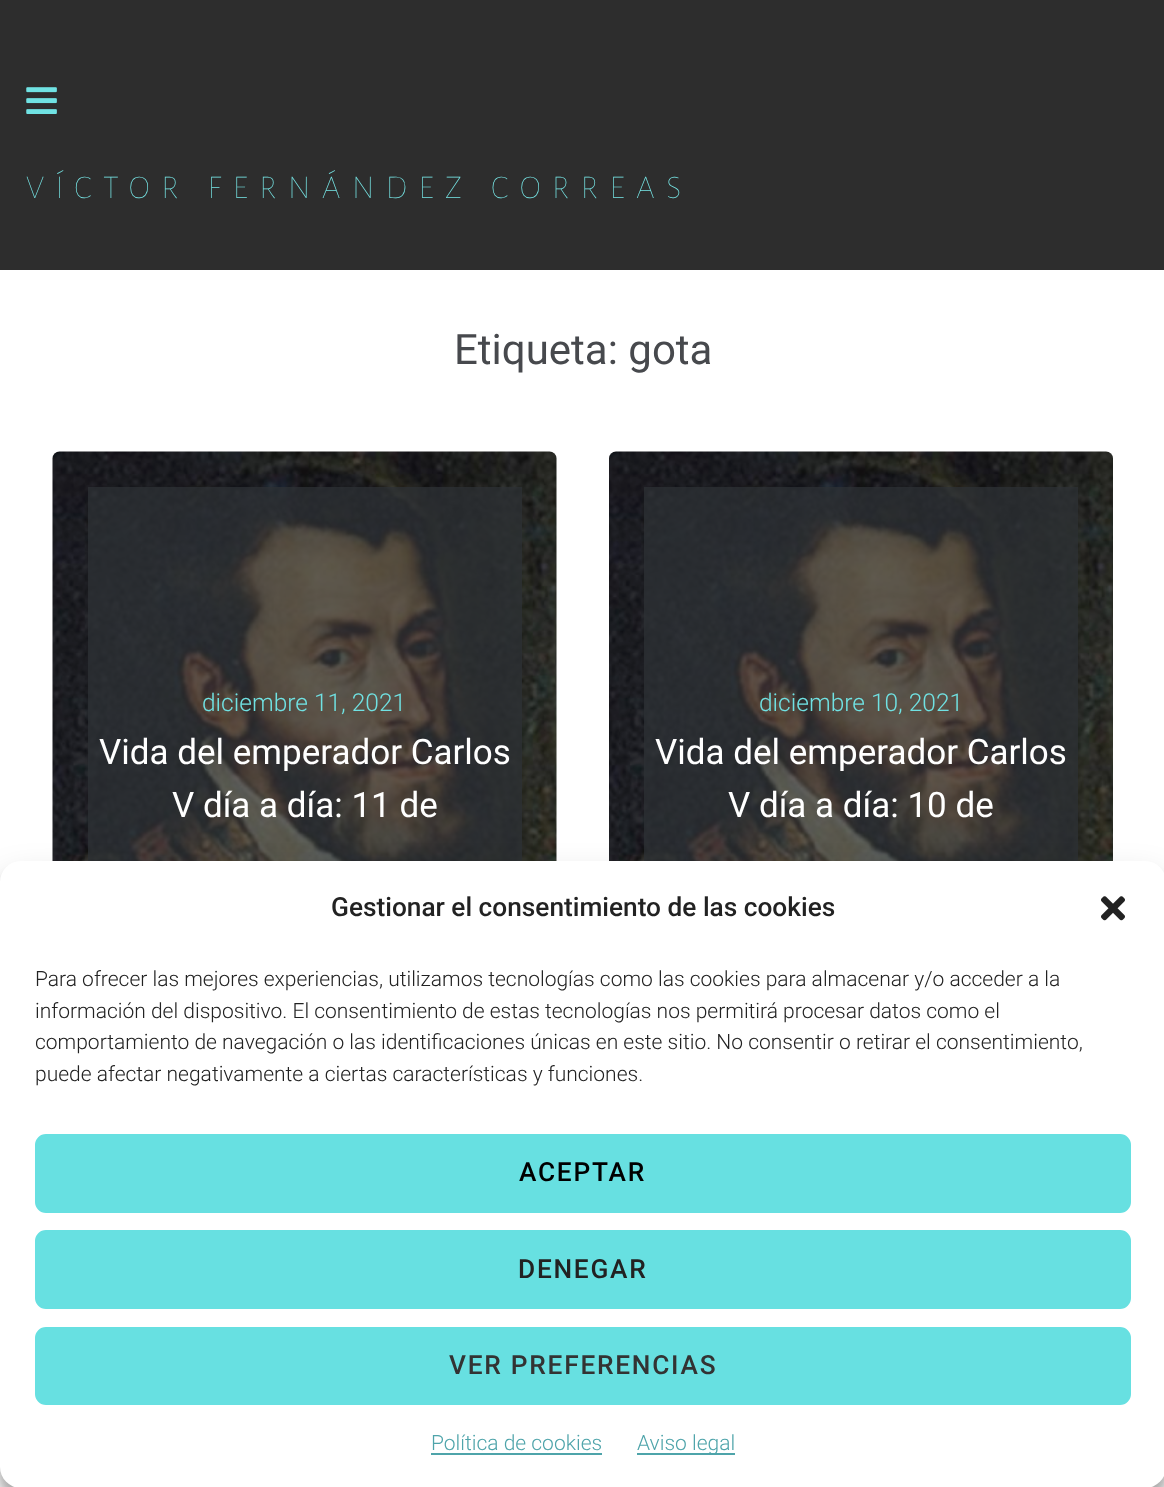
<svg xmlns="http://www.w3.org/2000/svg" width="1164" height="1487">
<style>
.a{font:100 33.25px Alegreya Sans;letter-spacing:11.55px;fill:#77e6e6}
.b{font:42px Roboto;fill:#47494d}
.c{font:300 24.5px Roboto;fill:#70e2e3}
.d{font:35px Roboto;fill:#fff}
.e{font:500 26.25px Roboto;fill:#222}
.f{font:300 21px Roboto;fill:#222}
.g{font:500 26.25px Roboto;letter-spacing:1.75px;fill:#000}
.h{font:500 26.25px Roboto;letter-spacing:1.75px;fill:#222}
.i{font:500 26.25px Roboto;letter-spacing:1.75px;fill:#333}
.j{font:300 21px Roboto;fill:#4ea4aa}
</style>
<rect width="100%" height="100%" fill="#fff"/>
<path fill="#2d2d2d" d="M0 0h1164v270H0z"/>
<image href="1.png" x="26" y="87" width="31" height="27"/>
<image href="2.png" x="52" y="451" width="505" height="410"/>
<path fill="#2e3136bf" d="M88 487h434v374H88z"/>
<image href="3.png" x="609" y="451" width="504" height="410"/>
<path fill="#2e3136bf" d="M644 487h434v374H644z"/>
<rect fill="#0000003b" filter="blur(5px)" y="872" width="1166" height="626" rx="21"/>
<rect fill="#00000030" filter="blur(17.5px)" y="879" width="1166" height="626" rx="21"/>
<rect fill="#fff" y="861" width="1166" height="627" rx="21"/>
<image href="4.png" x="1101" y="896" width="24" height="25"/>
<rect fill="#67e0e1" stroke="#67e0e1" stroke-width="2" x="36" y="1135" width="1094" height="77" rx="10"/>
<rect fill="#67e0e1" stroke="#67e0e1" stroke-width="2" x="36" y="1231" width="1094" height="77" rx="10"/>
<rect fill="#67e0e1" stroke="#67e0e1" stroke-width="2" x="36" y="1328" width="1094" height="76" rx="10"/>
<path fill="#4ea4aa" d="M431 1453h171v2H431z"/>
<path fill="#4ea4aa" d="M637 1453h98v2H637z"/>
<text class="a" x="26" y="198">VÍCTOR FERNÁNDEZ CORREAS</text>
<text class="b" x="454" y="364">Etiqueta: gota</text>
<text class="c" x="202" y="711">diciembre 11, 2021</text>
<text class="d" x="99" y="764">Vida del emperador Carlos</text>
<text class="d" x="172" y="817">V día a día: 11 de</text>
<text class="c" x="759" y="711">diciembre 10, 2021</text>
<text class="d" x="655" y="764">Vida del emperador Carlos</text>
<text class="d" x="728" y="817">V día a día: 10 de</text>
<text class="e" x="331" y="916">Gestionar el consentimiento de las cookies</text>
<text class="f" x="35" y="986">Para ofrecer las mejores experiencias, utilizamos tecnologías como las cookies para almacenar y/o acceder a la</text>
<text class="f" x="35" y="1018">información del dispositivo. El consentimiento de estas tecnologías nos permitirá procesar datos como el</text>
<text class="f" x="35" y="1049">comportamiento de navegación o las identificaciones únicas en este sitio. No consentir o retirar el consentimiento,</text>
<text class="f" x="35" y="1081">puede afectar negativamente a ciertas características y funciones.</text>
<text class="g" x="519" y="1181">ACEPTAR</text>
<text class="h" x="518" y="1278">DENEGAR</text>
<text class="i" x="449" y="1374">VER PREFERENCIAS</text>
<text class="j" x="431" y="1450">Política de cookies</text>
<text class="j" x="637" y="1450">Aviso legal</text>
</svg>
